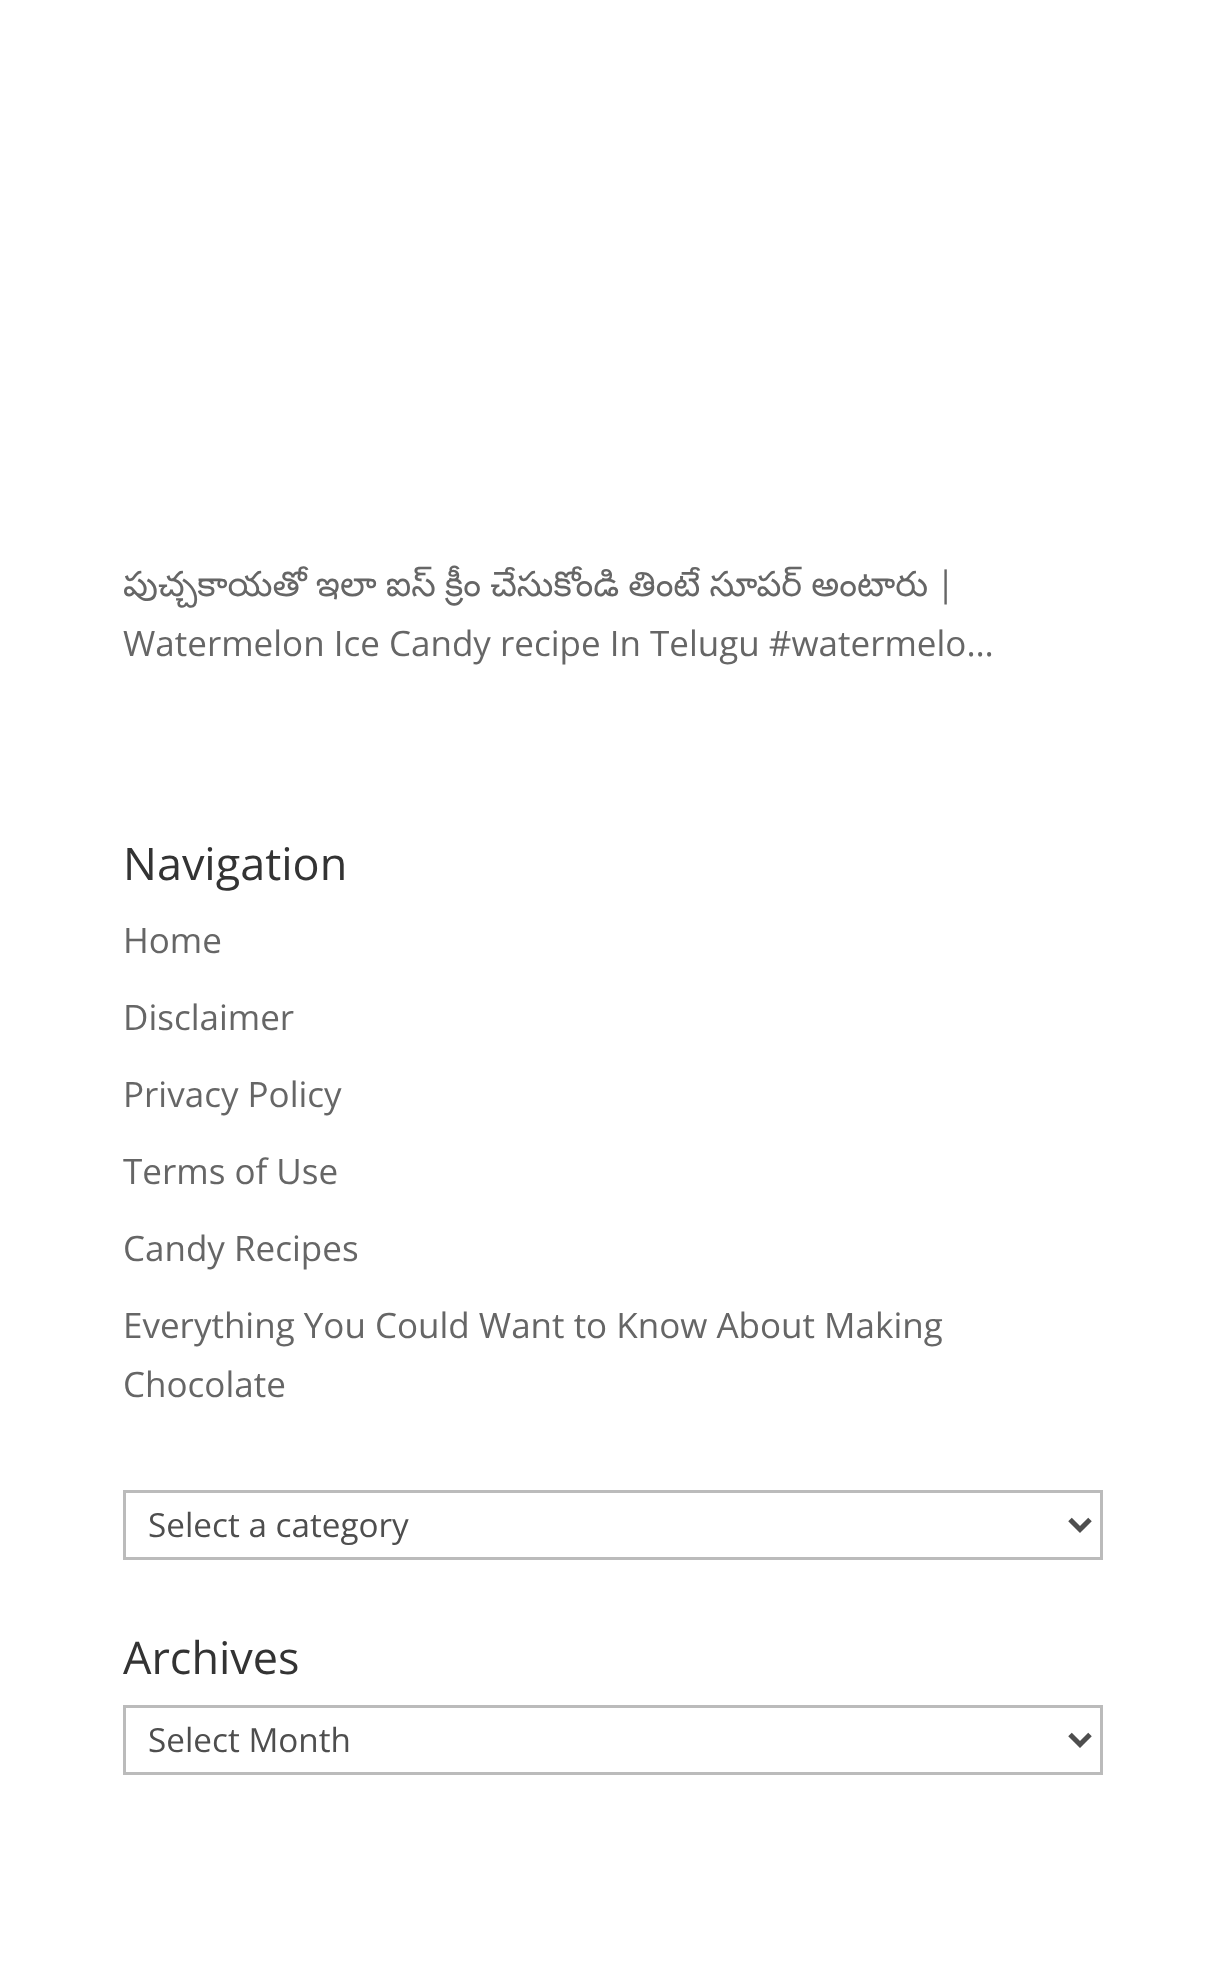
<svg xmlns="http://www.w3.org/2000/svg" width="1224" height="1981">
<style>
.a{font:35px Noto Sans Telugu;fill:#666}
.b{font:35px Open Sans;fill:#666}
.c{font:45px Open Sans;fill:#333}
.d{font:33.25px Open Sans;fill:#4e4e4e}
</style>
<rect width="100%" height="100%" fill="#fff"/>
<path fill="none" stroke="#bbb" stroke-width="3" d="M124.5 1491.5h977v67H124.5z"/>
<path fill="none" stroke="#4e4e4e" stroke-width="5" d="M1070 1519.5l10 10l10-10"/>
<path fill="none" stroke="#bbb" stroke-width="3" d="M124.5 1706.5h977v67H124.5z"/>
<path fill="none" stroke="#4e4e4e" stroke-width="5" d="M1070 1734.5l10 10l10-10"/>
<text class="a" x="123" y="596" word-spacing="-0.75">పుచ్చకాయతో ఇలా ఐస్ క్రీం చేసుకోండి తింటే సూపర్ అంటారు</text>
<text class="b" x="936" y="596">|</text>
<text class="b" x="123" y="656">Watermelon Ice Candy recipe In Telugu #watermelo…</text>
<text class="c" x="123" y="880">Navigation</text>
<text class="b" x="123" y="953">Home</text>
<text class="b" x="123" y="1030">Disclaimer</text>
<text class="b" x="123" y="1107">Privacy Policy</text>
<text class="b" x="123" y="1184">Terms of Use</text>
<text class="b" x="123" y="1261">Candy Recipes</text>
<text class="b" x="123" y="1338">Everything You Could Want to Know About Making</text>
<text class="b" x="123" y="1397">Chocolate</text>
<text class="d" x="148" y="1537">Select a category</text>
<text class="c" x="123" y="1674">Archives</text>
<text class="d" x="148" y="1752">Select Month</text>
</svg>
